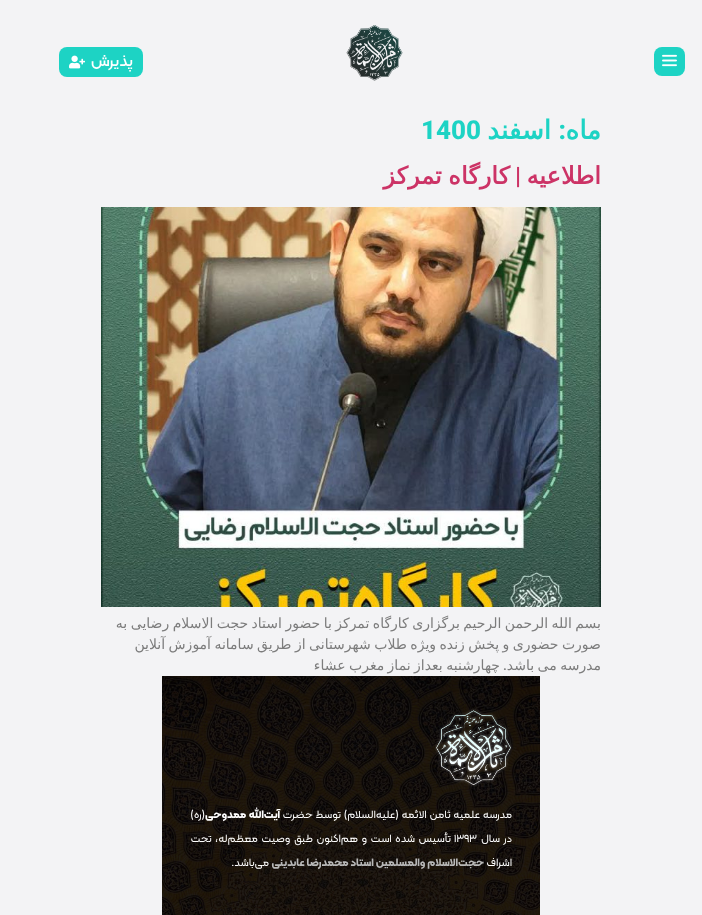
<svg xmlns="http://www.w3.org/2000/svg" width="702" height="915">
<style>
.a{font:500 16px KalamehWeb;direction:rtl;fill:#fff}
.b{font:bold 26px DejaVu Sans;direction:rtl;fill:#1dd3c4}
.c{font:800 26px Roboto;direction:rtl;fill:#1dd3c4}
.d{font:800 26px Roboto;fill:#1dd3c4}
.e{font:bold 24px DejaVu Sans;direction:rtl;fill:#c36}
.f{font:bold 24px Roboto;direction:rtl;fill:#c36}
.g{font:14px DejaVu Sans;direction:rtl;fill:#7c7c7c}
.h{font:500 14px Roboto;direction:rtl;fill:#7c7c7c}
.i{font:11px KalamehWeb;direction:rtl;fill:#fff}
.j{font:bold 11px KalamehWeb;direction:rtl;fill:#fff}
.k{font:11px KalamehWeb;fill:#fff}
.l{font:bold 11px KalamehWeb;direction:rtl;fill:#b8b8b8}
</style>
<rect width="100%" height="100%" fill="#f3f3f5"/>
<rect fill="#1dd3c4" x="654" y="47" width="31" height="29" rx="8"/>
<image href="1.png" x="662" y="54" width="15" height="13"/>
<image href="2.png" x="346" y="25" width="57" height="56"/>
<rect fill="#1dd3c4" x="59" y="47" width="84" height="30" rx="8"/>
<image href="3.png" x="69" y="55" width="16" height="14"/>
<image href="4.png" x="101" y="207" width="500" height="400"/>
<image href="5.png" x="162" y="676" width="378" height="239"/>
<image href="6.png" x="435" y="709" width="77" height="78"/>
<text class="a" x="133" y="66">پذیرش</text>
<text class="b" x="601" y="139">ماه</text>
<text class="c" x="566" y="139">:</text>
<text class="b" x="551" y="139">اسفند</text>
<text class="d" x="421" y="139">1400</text>
<text class="e" x="601" y="184">اطلاعیه</text>
<text class="f" x="521" y="184">|</text>
<text class="e" x="510" y="184" word-spacing="-1">کارگاه تمرکز</text>
<text class="g" x="601" y="628" word-spacing="-1">بسم الله الرحمن الرحیم برگزاری کارگاه تمرکز با حضور استاد حجت الاسلام رضایی به</text>
<text class="g" x="601" y="649" word-spacing="-1">صورت حضوری و پخش زنده ویژه طلاب شهرستانی از طریق سامانه آموزش آنلاین</text>
<text class="g" x="601" y="670" word-spacing="-1">مدرسه می باشد</text>
<text class="h" x="507" y="670">.</text>
<text class="g" x="500" y="670" word-spacing="-1">چهارشنبه بعداز نماز مغرب عشاء</text>
<text class="i" x="512" y="818" word-spacing="0.5">مدرسه علمیه ثامن الائمه (علیه‌السلام) توسط حضرت</text>
<text class="j" x="280" y="818" word-spacing="0.5">آیت‌الله ممدوحی</text>
<text class="i" x="205" y="818">(ره)</text>
<text class="i" x="512" y="842" word-spacing="1.25">در سال</text>
<text class="k" x="454" y="842">۱۳۹۳</text>
<text class="i" x="451" y="842" word-spacing="1.25">تأسیس شده است و هم‌اکنون طبق وصیت معظم‌له، تحت</text>
<text class="i" x="512" y="866">اشراف</text>
<text class="l" x="484" y="866">حجت‌الاسلام والمسلمین استاد محمدرضا عابدینی</text>
<text class="i" x="269" y="866">می‌باشد.</text>
</svg>
